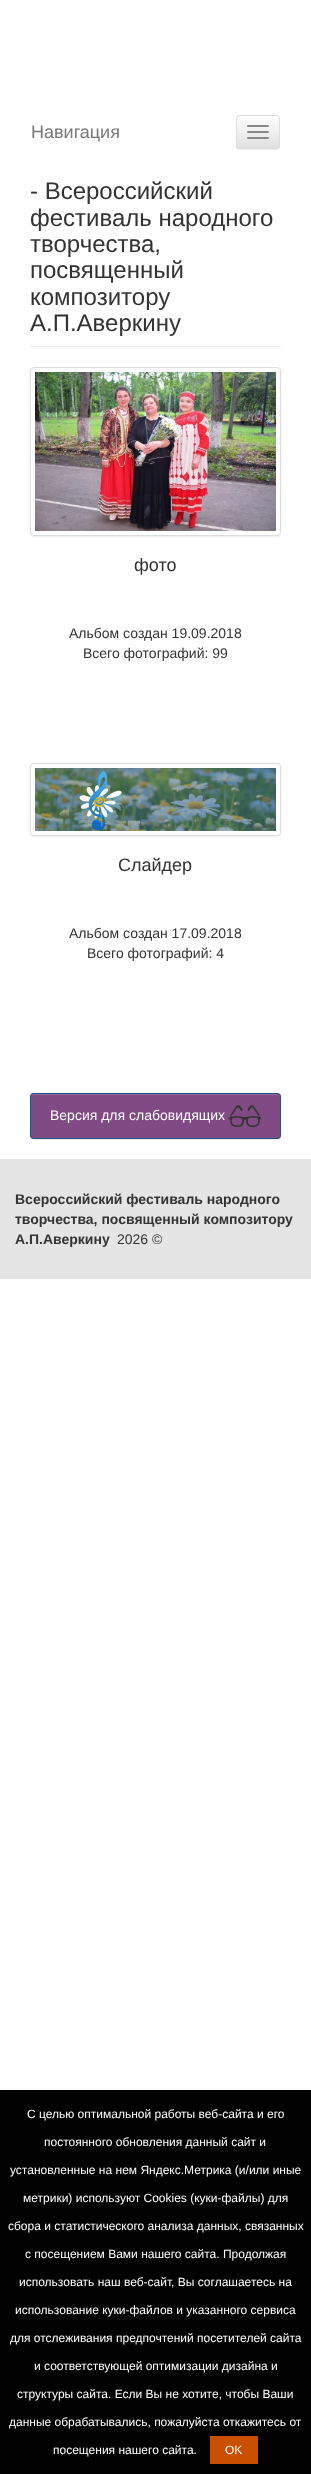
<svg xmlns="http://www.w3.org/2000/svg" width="311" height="2474">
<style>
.a{font:18px Liberation Sans;fill:#777}
.b{font:24px Liberation Sans;fill:#333}
.c{font:18px Liberation Sans;fill:#333}
.d{font:14px Liberation Sans;fill:#333}
.e{font:14px Liberation Sans;fill:#fff}
.f{font:bold 14px Liberation Sans;fill:#333}
.g{font:12px Liberation Sans;fill:#fff}
</style>
<defs>
<clipPath id="clip1"><rect x="236" y="115" width="44" height="34" rx="4"/></clipPath>
<linearGradient id="g1" gradientUnits="userSpaceOnUse" x1="258" y1="116" x2="258" y2="148"><stop offset="0" stop-color="#fff"/><stop offset="1" stop-color="#e0e0e0"/></linearGradient>
</defs>
<rect width="100%" height="100%" fill="#fff"/>
<rect fill="#00000012" filter="blur(0.5px)" x="236" y="116" width="44" height="34" rx="4"/>
<g clip-path="url(#clip1)">
<path fill="url(#g1)" d="M236 116h44v32H236z"/>
</g>
<rect fill="none" stroke="#ddd" x="236.5" y="115.5" width="43" height="33" rx="3.5"/>
<rect fill="#888" x="247" y="125" width="22" height="2" rx="1"/>
<rect fill="#888" x="247" y="131" width="22" height="2" rx="1"/>
<rect fill="#888" x="247" y="137" width="22" height="2" rx="1"/>
<path fill="#eee" d="M30 346h251v1H30z"/>
<rect fill="#00000012" filter="blur(1px)" x="30" y="368" width="251" height="169" rx="4"/>
<rect fill="#fff" stroke="#ddd" x="30.5" y="367.5" width="250" height="168" rx="3.5"/>
<image href="1.png" x="35" y="372" width="241" height="159"/>
<rect fill="#00000012" filter="blur(1px)" x="30" y="764" width="251" height="73" rx="4"/>
<rect fill="#fff" stroke="#ddd" x="30.5" y="763.5" width="250" height="72" rx="3.5"/>
<image href="2.png" x="35" y="768" width="241" height="63"/>
<rect fill="#00000012" filter="blur(0.5px)" x="30" y="1094" width="251" height="46" rx="4"/>
<rect fill="#804a84" x="30" y="1093" width="251" height="46" rx="4"/>
<path fill="#936596" d="M34 1095h244l2 1v2c0-2-1-4-3-4h-243c-2 0-3 2-3 4c0-2 1-3 3-3z"/>
<rect fill="none" stroke="#245580" x="30.5" y="1093.5" width="250" height="45" rx="3.5"/>
<image href="3.png" x="229" y="1105" width="32" height="22"/>
<path fill="#e5e5e5" d="M0 1159h311v120H0z"/>
<path fill="#000" d="M0 2090h311v384H0z"/>
<path fill="#ca5000" d="M210 2436h48v28H210z"/>
<text class="a" x="31" y="138">Навигация</text>
<text class="b" x="30" y="199">- Всероссийский</text>
<text class="b" x="30" y="226">фестиваль народного</text>
<text class="b" x="30" y="252">творчества,</text>
<text class="b" x="30" y="278">посвященный</text>
<text class="b" x="30" y="305">композитору</text>
<text class="b" x="30" y="331">А.П.Аверкину</text>
<text class="c" x="134" y="571">фото</text>
<text class="d" x="69" y="638">Альбом создан 19.09.2018</text>
<text class="d" x="83" y="658">Всего фотографий: 99</text>
<text class="c" x="118" y="871">Слайдер</text>
<text class="d" x="69" y="938">Альбом создан 17.09.2018</text>
<text class="d" x="87" y="958">Всего фотографий: 4</text>
<text class="e" x="50" y="1120">Версия для слабовидящих</text>
<text class="f" x="15" y="1204">Всероссийский фестиваль народного</text>
<text class="f" x="15" y="1224">творчества, посвященный композитору</text>
<text class="f" x="15" y="1244">А.П.Аверкину</text>
<text class="d" x="117" y="1244">2026 ©</text>
<text class="g" x="27" y="2118">С целью оптимальной работы веб-сайта и его</text>
<text class="g" x="44" y="2146">постоянного обновления данный сайт и</text>
<text class="g" x="10" y="2174">установленные на нем Яндекс.Метрика (и/или иные</text>
<text class="g" x="23" y="2202">метрики) используют Cookies (куки-файлы) для</text>
<text class="g" x="8" y="2230">сбора и статистического анализа данных, связанных</text>
<text class="g" x="25" y="2258">с посещением Вами нашего сайта. Продолжая</text>
<text class="g" x="19" y="2286">использовать наш веб-сайт, Вы соглашаетесь на</text>
<text class="g" x="15" y="2314">использование куки-файлов и указанного сервиса</text>
<text class="g" x="10" y="2342">для отслеживания предпочтений посетителей сайта</text>
<text class="g" x="34" y="2370">и соответствующей оптимизации дизайна и</text>
<text class="g" x="17" y="2398">структуры сайта. Если Вы не хотите, чтобы Ваши</text>
<text class="g" x="9" y="2426">данные обрабатывались, пожалуйста откажитесь от</text>
<text class="g" x="53" y="2454">посещения нашего сайта.</text>
<text class="g" x="225" y="2454">OK</text>
</svg>
